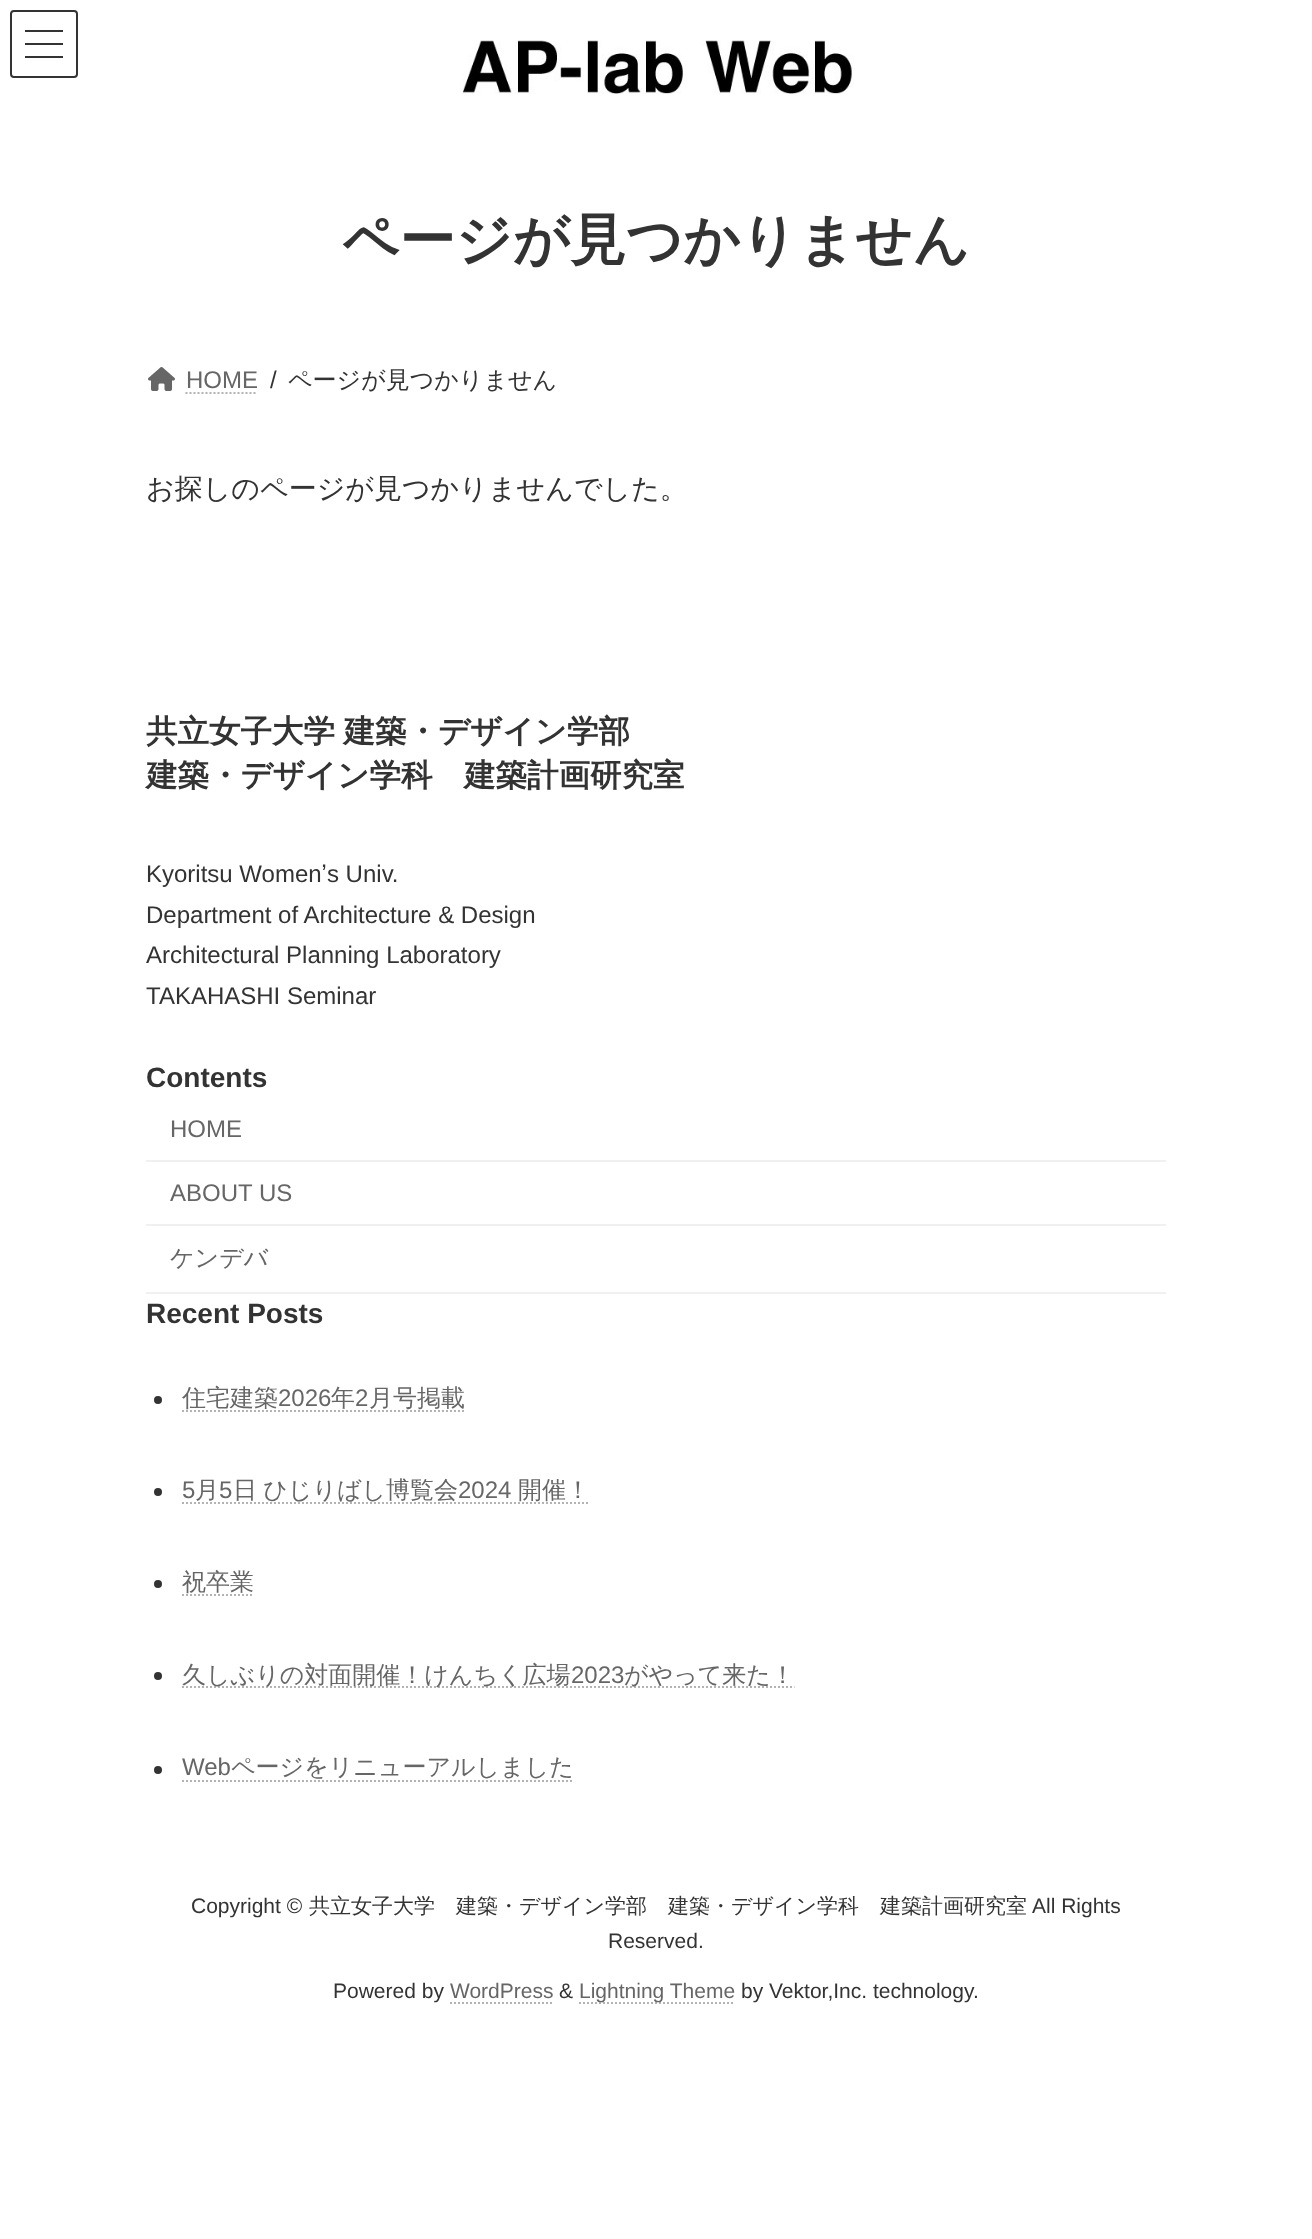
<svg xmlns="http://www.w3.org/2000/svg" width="1312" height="2239">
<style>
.a{font:bold 56px WenQuanYi Zen Hei;fill:#333}
.b{font:24px Liberation Sans;fill:#666}
.c{font:24px Liberation Sans;fill:#333}
.d{font:500 24px WenQuanYi Zen Hei;fill:#333}
.e{font:500 28px WenQuanYi Zen Hei;fill:#333}
.f{font:bold 31.5px WenQuanYi Zen Hei;fill:#333}
.g{font:bold 28px Liberation Sans;fill:#333}
.h{font:500 24px WenQuanYi Zen Hei;fill:#666}
.i{font:21px Liberation Sans;fill:#333}
.j{font:500 21px WenQuanYi Zen Hei;fill:#333}
.k{font:21px Liberation Sans;fill:#666}
</style>
<rect width="100%" height="100%" fill="#fff"/>
<path fill="#333" d="M25 30h38v2H25z"/>
<path fill="#333" d="M25 43h38v2H25z"/>
<path fill="#333" d="M25 56h38v2H25z"/>
<rect fill="none" stroke="#333" stroke-width="2" x="11" y="11" width="66" height="66" rx="3"/>
<image href="1.png" x="462" y="40" width="392" height="54"/>
<image href="2.png" x="148" y="367" width="27" height="24"/>
<path fill="none" stroke="#b3b3b3" stroke-width="2" stroke-dasharray="2 2" d="M185.5 393h72"/>
<path fill="#f0f0f0" d="M146 1160h1020v2H146z"/>
<path fill="#f0f0f0" d="M146 1224h1020v2H146z"/>
<path fill="#f0f0f0" d="M146 1292h1020v2H146z"/>
<circle fill="#333" cx="158" cy="1400" r="4"/>
<path fill="none" stroke="#b3b3b3" stroke-width="2" stroke-dasharray="2 2" d="M182 1411h283"/>
<circle fill="#333" cx="158" cy="1492" r="4"/>
<path fill="none" stroke="#b3b3b3" stroke-width="2" stroke-dasharray="2 2" d="M182 1503h408"/>
<circle fill="#333" cx="158" cy="1584" r="4"/>
<path fill="none" stroke="#b3b3b3" stroke-width="2" stroke-dasharray="2 2" d="M182 1595h72"/>
<circle fill="#333" cx="158" cy="1676" r="4"/>
<path fill="none" stroke="#b3b3b3" stroke-width="2" stroke-dasharray="2 2" d="M182 1687h612.5"/>
<circle fill="#333" cx="158" cy="1770" r="4"/>
<path fill="none" stroke="#b3b3b3" stroke-width="2" stroke-dasharray="2 2" d="M182 1781h391.5"/>
<path fill="none" stroke="#b3b3b3" stroke-width="2" stroke-dasharray="2 2" d="M450 2003h103.5"/>
<path fill="none" stroke="#b3b3b3" stroke-width="2" stroke-dasharray="2 2" d="M579 2003h156"/>
<text class="a" x="342" y="259">ページが見つかりません</text>
<text class="b" x="186" y="388">HOME</text>
<text class="c" x="270" y="388">/</text>
<text class="d" x="288" y="388">ページが見つかりません</text>
<text class="e" x="146" y="498">お探しのページが見つかりませんでした。</text>
<text class="f" x="146" y="742" word-spacing="-1">共立女子大学 建築・デザイン学部</text>
<text class="f" x="146" y="786">建築・デザイン学科　建築計画研究室</text>
<text class="c" x="146" y="882">Kyoritsu Womenʼs Univ.</text>
<text class="c" x="146" y="923">Department of Architecture &amp; Design</text>
<text class="c" x="146" y="963">Architectural Planning Laboratory</text>
<text class="c" x="146" y="1004">TAKAHASHI Seminar</text>
<text class="g" x="146" y="1087">Contents</text>
<text class="b" x="170" y="1137">HOME</text>
<text class="b" x="170" y="1201">ABOUT US</text>
<text class="h" x="170" y="1266">ケンデバ</text>
<text class="g" x="146" y="1323">Recent Posts</text>
<text class="h" x="182" y="1406">住宅建築</text>
<text class="b" x="278" y="1406">2026</text>
<text class="h" x="331" y="1406">年</text>
<text class="b" x="355" y="1406">2</text>
<text class="h" x="369" y="1406">月号掲載</text>
<text class="b" x="182" y="1498">5</text>
<text class="h" x="195" y="1498">月</text>
<text class="b" x="219" y="1498">5</text>
<text class="h" x="233" y="1498" word-spacing="-1">日 ひじりばし博覧会</text>
<text class="b" x="458" y="1498">2024</text>
<text class="h" x="518" y="1498">開催！</text>
<text class="h" x="182" y="1590">祝卒業</text>
<text class="h" x="182" y="1683">久しぶりの対面開催！けんちく広場</text>
<text class="b" x="571" y="1683">2023</text>
<text class="h" x="624" y="1683">がやって来た！</text>
<text class="b" x="182" y="1775">Web</text>
<text class="h" x="231" y="1775">ページをリニューアルしました</text>
<text class="i" x="191" y="1913">Copyright ©</text>
<text class="j" x="309" y="1913">共立女子大学　建築・デザイン学部　建築・デザイン学科　建築計画研究室</text>
<text class="i" x="1032" y="1913">All Rights</text>
<text class="i" x="608" y="1948">Reserved.</text>
<text class="i" x="333" y="1998">Powered by</text>
<text class="k" x="450" y="1998">WordPress</text>
<text class="i" x="559" y="1998">&amp;</text>
<text class="k" x="579" y="1998">Lightning Theme</text>
<text class="i" x="741" y="1998">by Vektor,Inc. technology.</text>
</svg>
